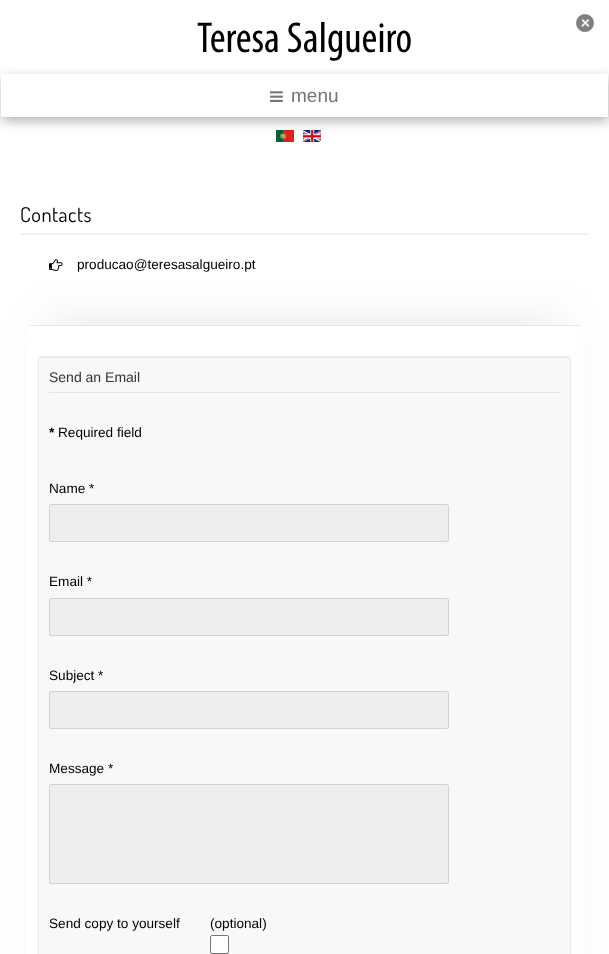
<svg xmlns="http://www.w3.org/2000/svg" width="609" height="954">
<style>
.a{font:43.5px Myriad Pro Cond;fill:#000}
.b{font:19px Liberation Sans;fill:#757575}
.c{font:20.5px Dosis;letter-spacing:0.5px;fill:#000}
.d{font:13.6px Liberation Sans;fill:#000}
.e{font:14px Liberation Sans;fill:#333}
.f{font:bold 13.6px Liberation Sans;fill:#000}
</style>
<defs>
<clipPath id="clip1"><path d="M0 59h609v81h-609zm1 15h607v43h-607z" clip-rule="evenodd"/></clipPath>
<clipPath id="clip2"><path d="M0 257h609v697h-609zm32 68h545c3.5 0 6 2.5 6 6v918c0 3.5-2.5 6-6 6h-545c-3.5 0-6-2.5-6-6v-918c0-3.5 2.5-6 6-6z" clip-rule="evenodd"/></clipPath>
</defs>
<rect width="100%" height="100%" fill="#fff"/>
<g clip-path="url(#clip1)">
<path fill="#0000004d" filter="blur(6px)" d="M2 78h607v43H2z"/>
</g>
<image href="1.png" x="270" y="91" width="13" height="11"/>
<image href="2.png" x="276" y="130" width="18" height="12"/>
<image href="3.png" x="303" y="130" width="18" height="12"/>
<image href="4.png" x="576" y="14" width="18" height="18"/>
<path fill="#f2f2f2" d="M20 233h569v2H20z"/>
<g clip-path="url(#clip2)">
<path fill="#64646424" filter="blur(21px)" d="M47 321h515v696H47z"/>
</g>
<image href="5.png" x="49" y="259" width="14" height="12"/>
<path fill="#e7e7e7" d="M29 325h551v1H29z"/>
<rect fill="#f8f8f8" x="38" y="356" width="533" height="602" rx="4"/>
<path fill="#ececec" d="M42 358h525c2 0 3 1 3 3l-1-3l-2-1h-525c-2 0-3 2-3 4c0-2 1-3 3-3z"/>
<rect fill="none" stroke="#e9e9e9" x="38.5" y="356.5" width="532" height="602" rx="3.5"/>
<path fill="#e5e5e5" d="M49 392h511v1H49z"/>
<rect fill="#eee" stroke="#d2d2d2" x="49.5" y="504.5" width="399" height="37" rx="1.5"/>
<rect fill="#eee" stroke="#d2d2d2" x="49.5" y="598.5" width="399" height="37" rx="1.5"/>
<rect fill="#eee" stroke="#d2d2d2" x="49.5" y="691.5" width="399" height="37" rx="1.5"/>
<rect fill="#eee" stroke="#d2d2d2" x="49.5" y="784.5" width="399" height="99" rx="1.5"/>
<rect fill="#fff" stroke="#767676" x="210.5" y="935.5" width="18" height="18" rx="1.5"/>
<text class="a" x="197" y="52">Teresa Salgueiro</text>
<text class="b" x="291" y="102">menu</text>
<text class="c" x="20" y="222">Contacts</text>
<text class="d" x="77" y="269">producao@teresasalgueiro.pt</text>
<text class="e" x="49" y="382">Send an Email</text>
<text class="f" x="49" y="437">*</text>
<text class="d" x="58" y="437">Required field</text>
<text class="d" x="49" y="493">Name *</text>
<text class="d" x="49" y="586">Email *</text>
<text class="d" x="49" y="680">Subject *</text>
<text class="d" x="49" y="773">Message *</text>
<text class="d" x="49" y="928">Send copy to yourself</text>
<text class="d" x="210" y="928">(optional)</text>
</svg>
